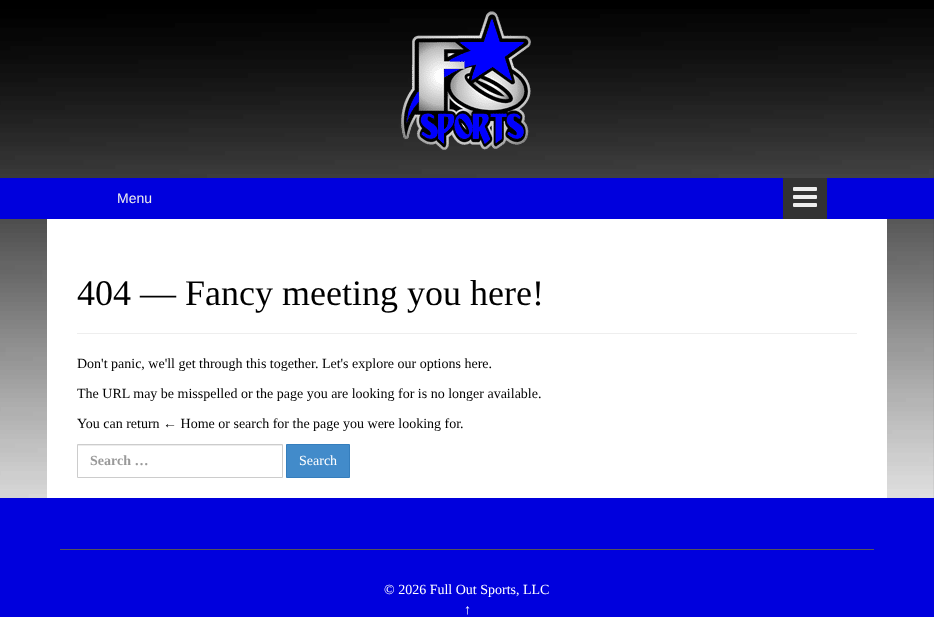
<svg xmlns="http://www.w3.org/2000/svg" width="934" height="617">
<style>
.a{font:14px Liberation Sans;fill:#eee}
.b{font:36px Liberation Serif;fill:#000}
.c{font:14px Liberation Serif;fill:#000}
.d{font:bold 14px Liberation Serif;fill:#999}
.e{font:14px Liberation Serif;fill:#fff}
</style>
<rect width="100%" height="100%" fill="#000"/>
<image href="1.png" x="0" y="9" width="934" height="489"/>
<image href="2.png" x="400" y="11" width="131" height="139"/>
<path fill="#00d" d="M0 178h934v41H0z"/>
<path fill="#333" d="M783 178h44v41H783z"/>
<image href="3.png" x="793" y="187" width="24" height="20"/>
<path fill="#fff" d="M47 219h840v279H47z"/>
<path fill="#eee" d="M77 333h780v1H77z"/>
<path fill="#ececec" d="M78 445h204v1H78z"/>
<path fill="none" stroke="#ccc" d="M77.5 444.5h205v33H77.5z"/>
<path fill="#428bca" stroke="#357ebd" d="M286.5 444.5h63v33H286.5z"/>
<path fill="#00d" d="M0 498h934v119H0z"/>
<path fill="#555" d="M60 549h814v1H60z"/>
<text class="a" x="117" y="203">Menu</text>
<text class="b" x="77" y="305">404 — Fancy meeting you here!</text>
<text class="c" x="77" y="368">Don't panic, we'll get through this together. Let's explore our options here.</text>
<text class="c" x="77" y="398">The URL may be misspelled or the page you are looking for is no longer available.</text>
<text class="c" x="77" y="428">You can return ← Home or search for the page you were looking for.</text>
<text class="d" x="90" y="465">Search …</text>
<text class="e" x="299" y="465">Search</text>
<text class="e" x="384" y="594">© 2026 Full Out Sports, LLC</text>
<text class="e" x="464" y="614">↑</text>
</svg>
